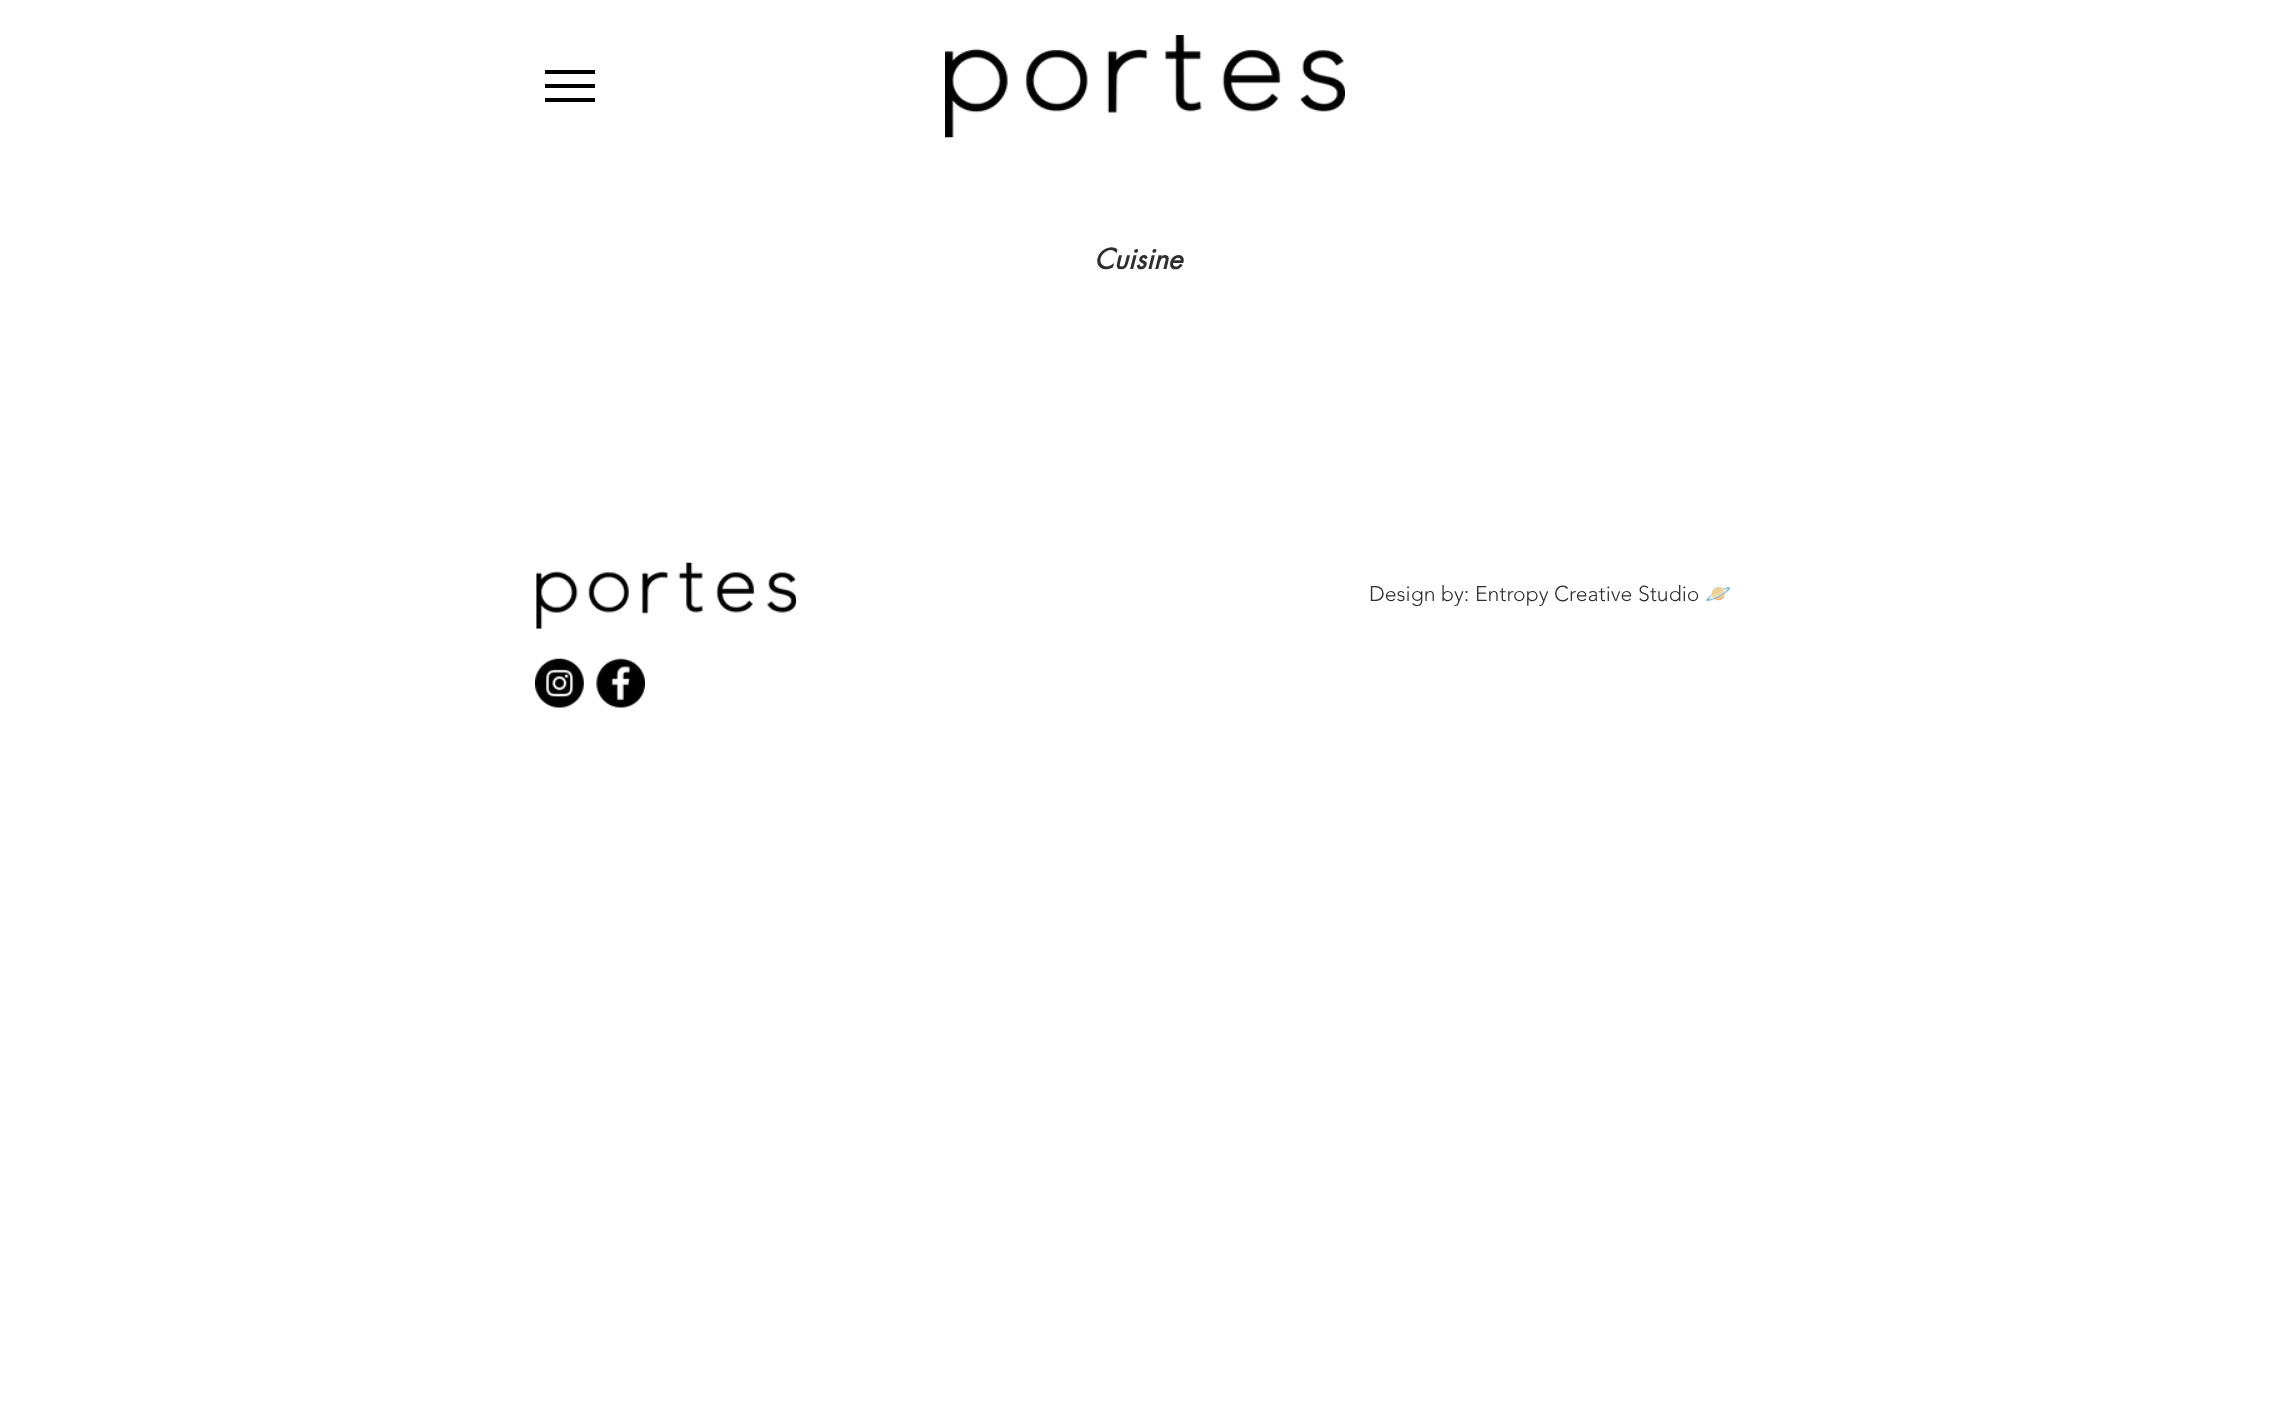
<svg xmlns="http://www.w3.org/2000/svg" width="2288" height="1423">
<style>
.a{font:italic bold 27.5px futura;fill:#2f2e2e}
.b{font:300 21.25px 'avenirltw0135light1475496';fill:#2f2e2e}
.c{font:21.25px Noto Color Emoji;fill:#2f2e2e}
</style>
<rect width="100%" height="100%" fill="#fff"/>
<path fill="#000" d="M545 98h50v4H545z"/>
<path fill="#000" d="M545 70h50v4H545z"/>
<path fill="#000" d="M545 84h50v4H545z"/>
<image href="1.png" x="945" y="35" width="400" height="103"/>
<image href="2.png" x="536" y="562" width="261" height="67"/>
<image href="3.png" x="535" y="658" width="49" height="50"/>
<image href="4.png" x="596" y="658" width="49" height="50"/>
<text class="a" x="1094" y="269">Cuisine</text>
<text class="b" x="1369" y="601">Design by: Entropy Creative Studio</text>
<text class="c" x="1705" y="601">🪐</text>
</svg>
